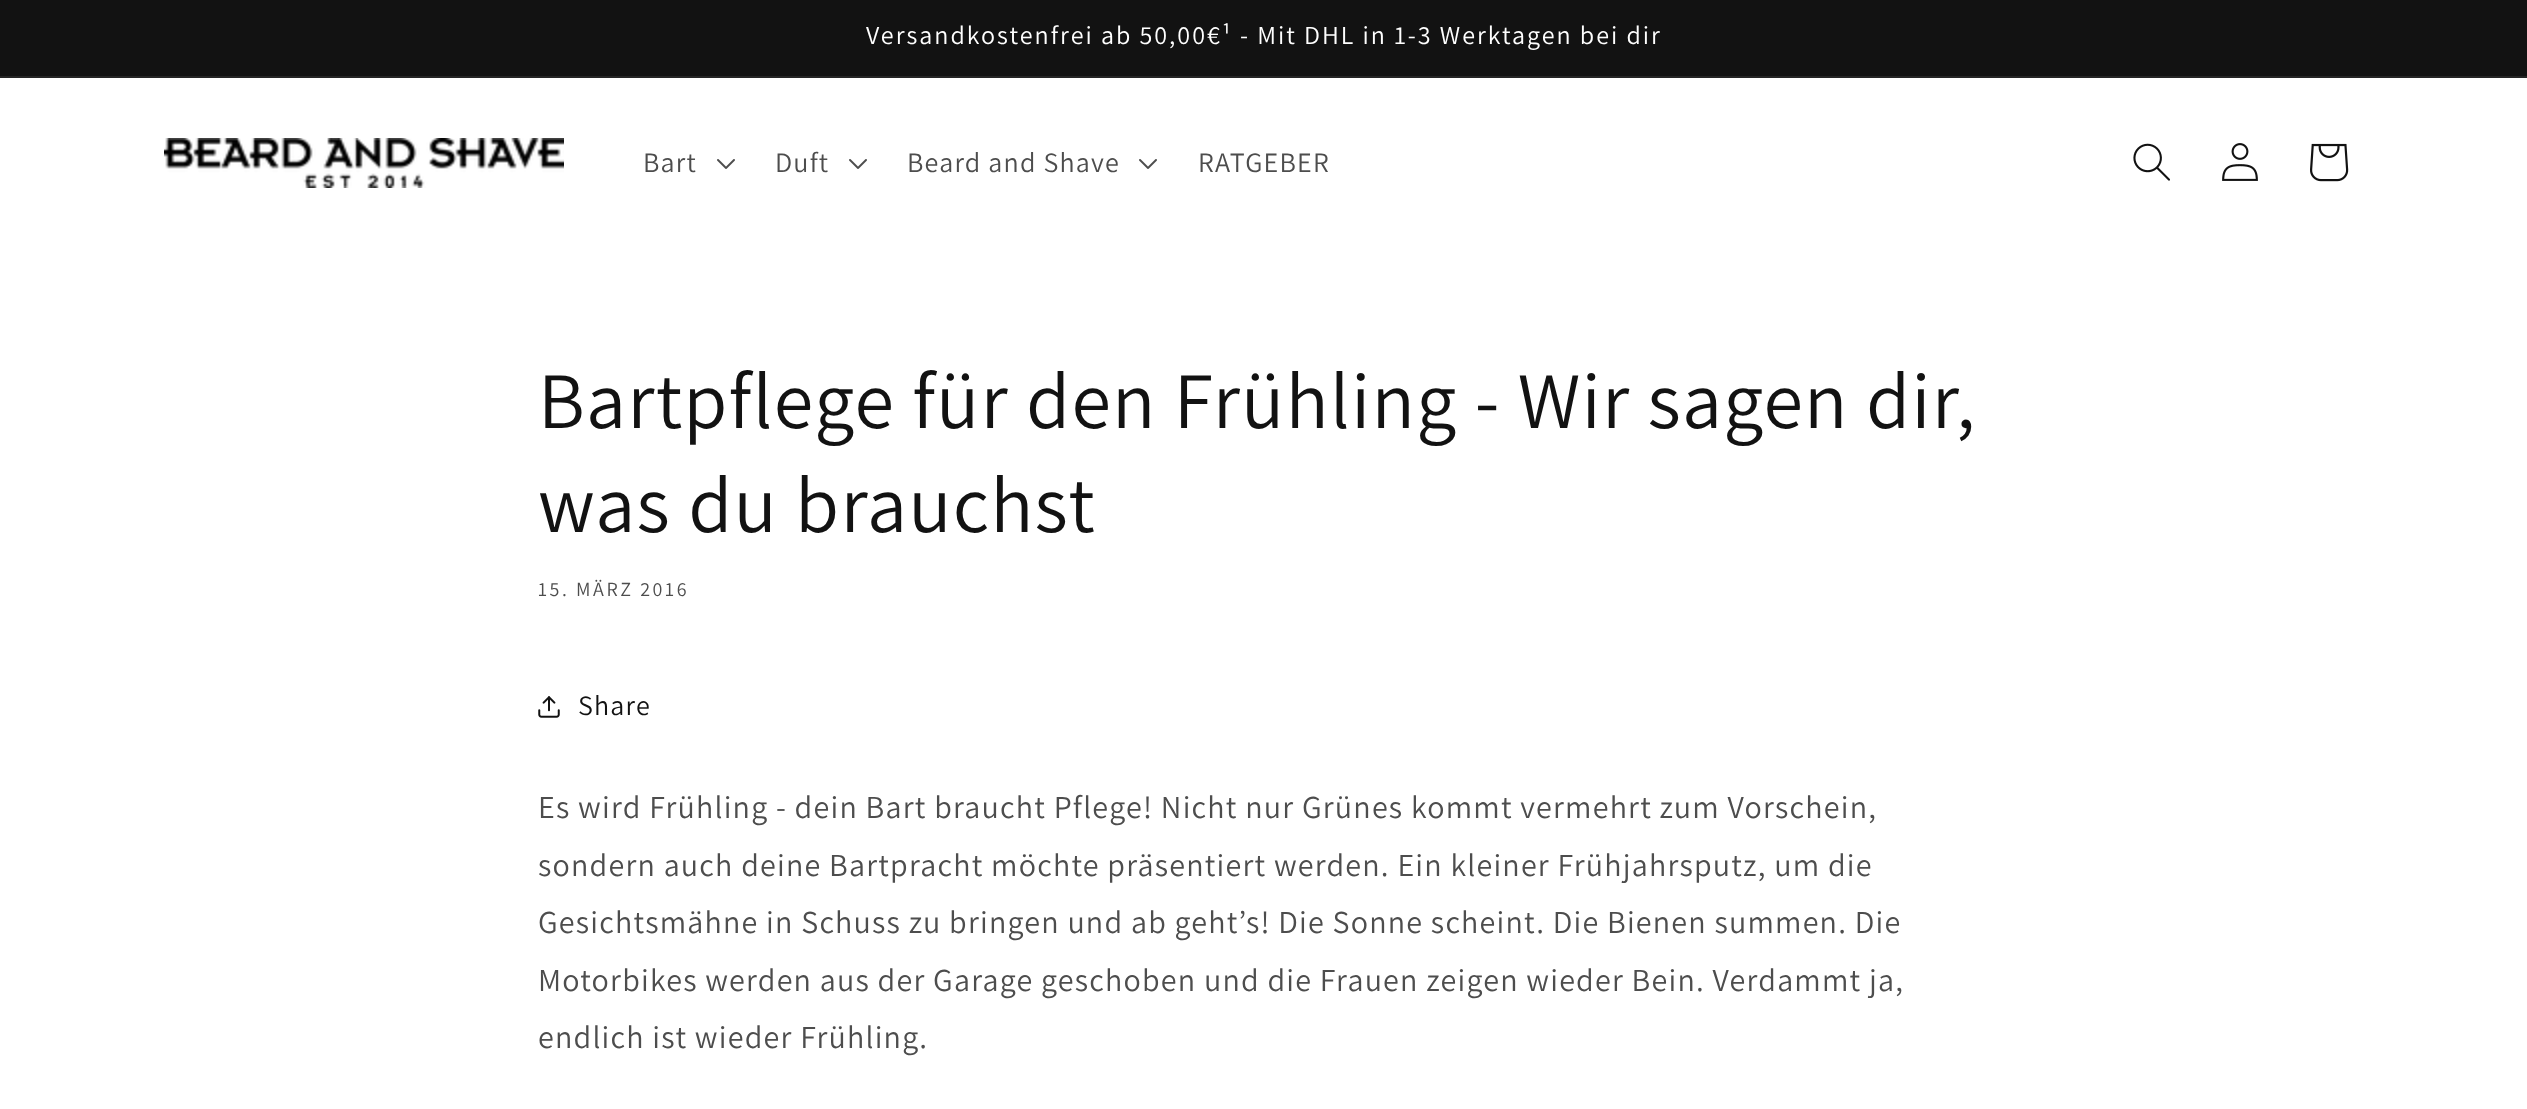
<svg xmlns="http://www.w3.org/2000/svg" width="2527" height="1109">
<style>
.a{font:26px Assistant;letter-spacing:2px;fill:#fff}
.b{font:28px Assistant;letter-spacing:1.2px;fill:#4d4d4d}
.c{font:80px Assistant;letter-spacing:1.2px;fill:#121212}
.d{font:20px Assistant;letter-spacing:2.6px;fill:#4d4d4d}
.e{font:28px Assistant;letter-spacing:1.2px;fill:#121212}
.f{font:32px Assistant;letter-spacing:1.2px;fill:#4d4d4d}
</style>
<rect width="100%" height="100%" fill="#fff"/>
<path fill="#121212" d="M0 0h2527v76H0z"/>
<path fill="#252525" d="M0 76h2527v2H0z"/>
<image href="1.png" x="164" y="138" width="400" height="50"/>
<image href="2.png" x="717" y="159" width="18" height="10"/>
<image href="2.png" x="849" y="159" width="18" height="10"/>
<image href="2.png" x="1139" y="159" width="18" height="10"/>
<image href="3.png" x="2133" y="143" width="37" height="38"/>
<image href="4.png" x="2222" y="143" width="36" height="38"/>
<image href="5.png" x="2310" y="143" width="39" height="39"/>
<image href="6.png" x="538" y="696" width="22" height="22"/>
<text class="a" x="866" y="44">Versandkostenfrei ab 50,00€¹ - Mit DHL in 1-3 Werktagen bei dir</text>
<text class="b" x="643" y="172">Bart</text>
<text class="b" x="775" y="172">Duft</text>
<text class="b" x="907" y="172">Beard and Shave</text>
<text class="b" x="1198" y="172">RATGEBER</text>
<text class="c" x="538" y="428">Bartpflege für den Frühling - Wir sagen dir,</text>
<text class="c" x="538" y="532">was du brauchst</text>
<text class="d" x="538" y="596">15. MÄRZ 2016</text>
<text class="e" x="578" y="715">Share</text>
<text class="f" x="538" y="818">Es wird Frühling - dein Bart braucht Pflege! Nicht nur Grünes kommt vermehrt zum Vorschein,</text>
<text class="f" x="538" y="876">sondern auch deine Bartpracht möchte präsentiert werden. Ein kleiner Frühjahrsputz, um die</text>
<text class="f" x="538" y="933">Gesichtsmähne in Schuss zu bringen und ab geht’s! Die Sonne scheint. Die Bienen summen. Die</text>
<text class="f" x="538" y="991">Motorbikes werden aus der Garage geschoben und die Frauen zeigen wieder Bein. Verdammt ja,</text>
<text class="f" x="538" y="1048">endlich ist wieder Frühling.</text>
</svg>
